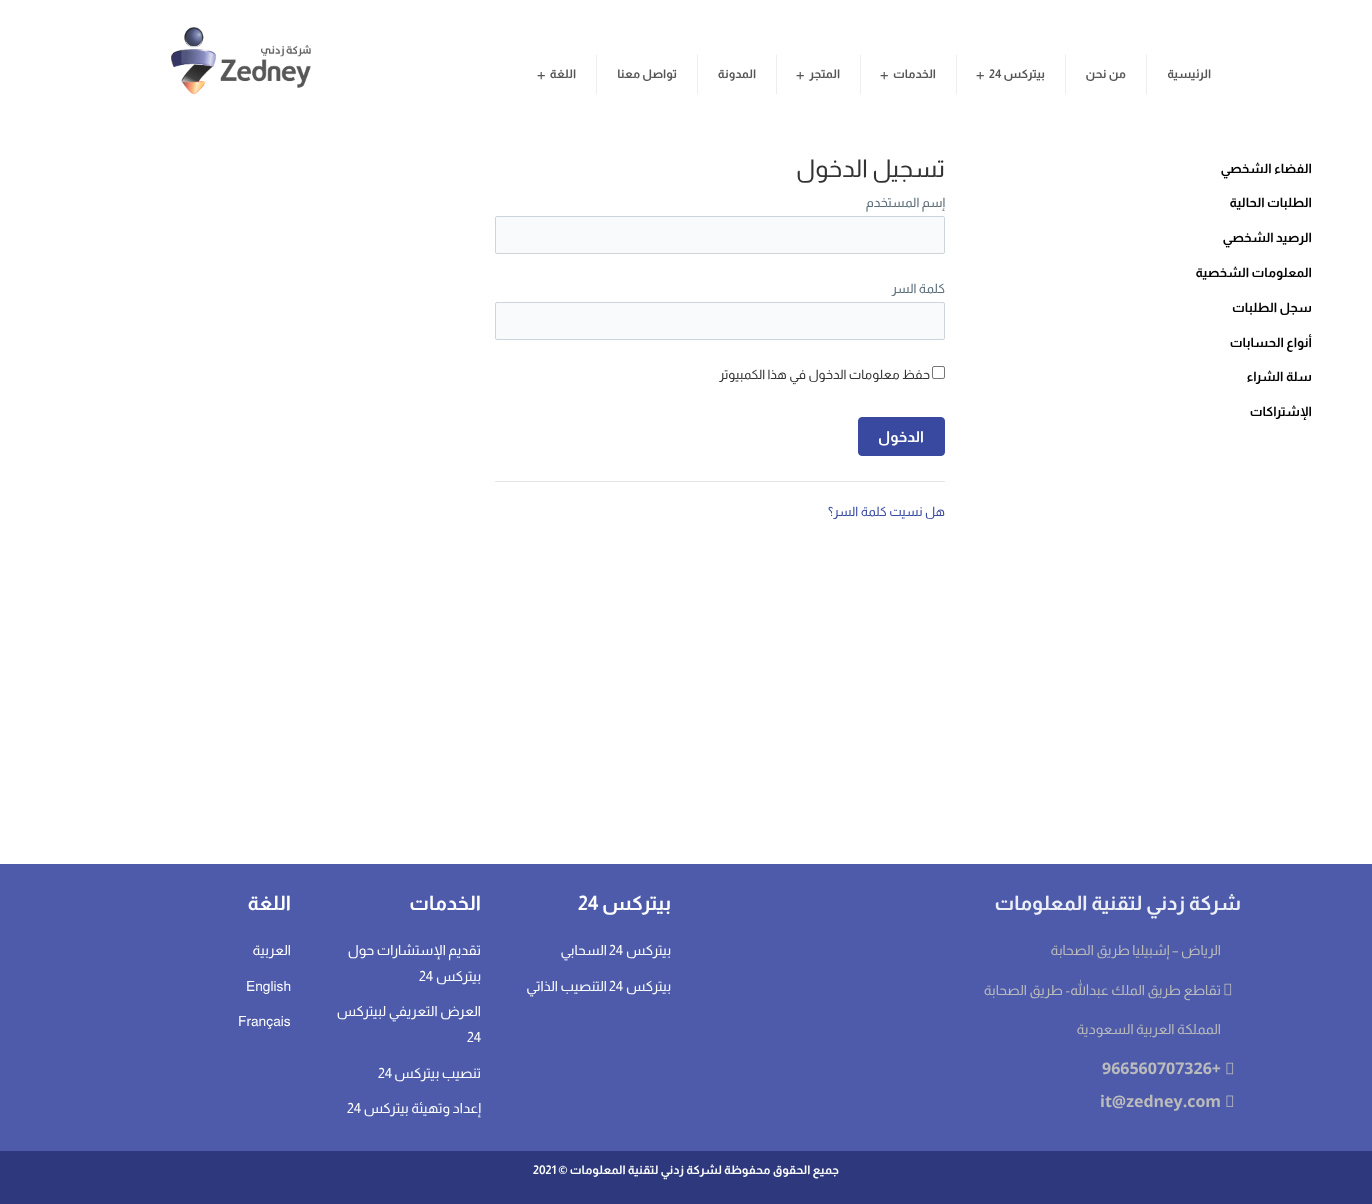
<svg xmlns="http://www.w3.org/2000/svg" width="1372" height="1204">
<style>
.a{font:bold 12px Almarai;direction:rtl;fill:#555}
.b{font:bold 12px Almarai;fill:#555}
.c{font:14px DejaVu Sans Mono;fill:#555}
.d{font:bold 13px Almarai;direction:rtl;fill:#000}
.e{font:24.5px Almarai;direction:rtl;fill:#333}
.f{font:13px Almarai;direction:rtl;fill:#5a6c77}
.g{font:13px Almarai;direction:rtl;fill:#333}
.h{font:bold 15px Almarai;direction:rtl;fill:#fff}
.i{font:13px Almarai;direction:rtl;fill:#3949a0}
.j{font:bold 20px Almarai;direction:rtl;fill:#edeff7}
.k{font:14px Almarai;direction:rtl;fill:#bbb}
.l{font:bold 16px Open Sans;fill:#bbb}
.m{font:bold 20px Almarai;direction:rtl;fill:#fff}
.n{font:bold 20px Almarai;fill:#fff}
.o{font:14px Almarai;direction:rtl;fill:#fff}
.p{font:14px Almarai;fill:#fff}
.q{font:bold 12px Almarai;direction:rtl;fill:#fff}
.r{font:bold 12px Almarai;fill:#fff}
</style>
<rect width="100%" height="100%" fill="#fff"/>
<path fill="#eee" d="M1146 55h1v39H1146z"/>
<path fill="#eee" d="M1065 55h1v39H1065z"/>
<path fill="#eee" d="M956 55h1v39H956z"/>
<path fill="#eee" d="M860 55h1v39H860z"/>
<path fill="#eee" d="M776 55h1v39H776z"/>
<path fill="#eee" d="M697 55h1v39H697z"/>
<path fill="#eee" d="M596 55h1v39H596z"/>
<image href="1.png" x="171" y="27" width="140" height="68"/>
<rect fill="#f8fafc" stroke="#ccd5db" x="495.5" y="216.5" width="449" height="37" rx="1.5"/>
<rect fill="#f8fafc" stroke="#ccd5db" x="495.5" y="302.5" width="449" height="37" rx="1.5"/>
<rect fill="none" stroke="#767676" x="932.5" y="366.5" width="12" height="12" rx="1.5"/>
<rect fill="#3949a0" stroke="#3949a0" x="858.5" y="417.5" width="86" height="38" rx="3.5"/>
<path fill="#e5e5e5" d="M495 481h450v1H495z"/>
<path fill="#4d5baa" d="M0 864h1372v287H0z"/>
<image href="2.png" x="1224" y="983" width="8" height="13"/>
<image href="2.png" x="1226" y="1062" width="8" height="13"/>
<image href="3.png" x="1226" y="1095" width="8" height="12"/>
<path fill="#2d397c" d="M0 1151h1372v53H0z"/>
<text class="a" x="1211" y="78">الرئيسية</text>
<text class="a" x="1126" y="78">من نحن</text>
<text class="a" x="1045" y="78">بيتركس</text>
<text class="b" x="989" y="78">24</text>
<text class="c" x="976" y="80">+</text>
<text class="a" x="936" y="78">الخدمات</text>
<text class="c" x="880" y="80">+</text>
<text class="a" x="840" y="78">المتجر</text>
<text class="c" x="796" y="80">+</text>
<text class="a" x="756" y="78">المدونة</text>
<text class="a" x="677" y="78">تواصل معنا</text>
<text class="a" x="576" y="78">اللغة</text>
<text class="c" x="537" y="80">+</text>
<text class="d" x="1312" y="173">الفضاء الشخصي</text>
<text class="d" x="1312" y="207">الطلبات الحالية</text>
<text class="d" x="1312" y="242">الرصيد الشخصي</text>
<text class="d" x="1312" y="277">المعلومات الشخصية</text>
<text class="d" x="1312" y="312">سجل الطلبات</text>
<text class="d" x="1312" y="347">أنواع الحسابات</text>
<text class="d" x="1312" y="381">سلة الشراء</text>
<text class="d" x="1312" y="416">الإشتراكات</text>
<text class="e" x="945" y="177">تسجيل الدخول</text>
<text class="f" x="945" y="207">إسم المستخدم</text>
<text class="f" x="945" y="293">كلمة السر</text>
<text class="g" x="930" y="379">حفظ معلومات الدخول في هذا الكمبيوتر</text>
<text class="h" x="924" y="442">الدخول</text>
<text class="i" x="945" y="516">هل نسيت كلمة السر؟</text>
<text class="j" x="1241" y="910">شركة زدني لتقنية المعلومات</text>
<text class="k" x="1221" y="955">الرياض – إشبيليا طريق الصحابة</text>
<text class="k" x="1221" y="995">تقاطع طريق الملك عبدالله</text>
<text class="k" x="1070" y="995">- طريق الصحابة</text>
<text class="k" x="1221" y="1034">المملكة العربية السعودية</text>
<text class="l" x="1102" y="1074">966560707326+</text>
<text class="l" x="1100" y="1107">it@zedney.com</text>
<text class="m" x="671" y="910">بيتركس</text>
<text class="n" x="578" y="910">24</text>
<text class="o" x="671" y="955">بيتركس</text>
<text class="p" x="609" y="955">24</text>
<text class="o" x="607" y="955">السحابي</text>
<text class="o" x="671" y="991">بيتركس</text>
<text class="p" x="609" y="991">24</text>
<text class="o" x="607" y="991">التنصيب الذاتي</text>
<text class="m" x="481" y="910">الخدمات</text>
<text class="o" x="481" y="955">تقديم الإستشارات حول</text>
<text class="o" x="481" y="981">بيتركس</text>
<text class="p" x="419" y="981">24</text>
<text class="o" x="481" y="1016">العرض التعريفي لبيتركس</text>
<text class="p" x="467" y="1042">24</text>
<text class="o" x="481" y="1078">تنصيب بيتركس</text>
<text class="p" x="378" y="1078">24</text>
<text class="o" x="481" y="1113">إعداد وتهيئة بيتركس</text>
<text class="p" x="347" y="1113">24</text>
<text class="m" x="291" y="910">اللغة</text>
<text class="o" x="291" y="955">العربية</text>
<text class="p" x="246" y="991">English</text>
<text class="p" x="238" y="1026">Français</text>
<text class="q" x="839" y="1174">جميع الحقوق محفوظة لشركة زدني لتقنية المعلومات ©</text>
<text class="r" x="533" y="1174">2021</text>
</svg>
